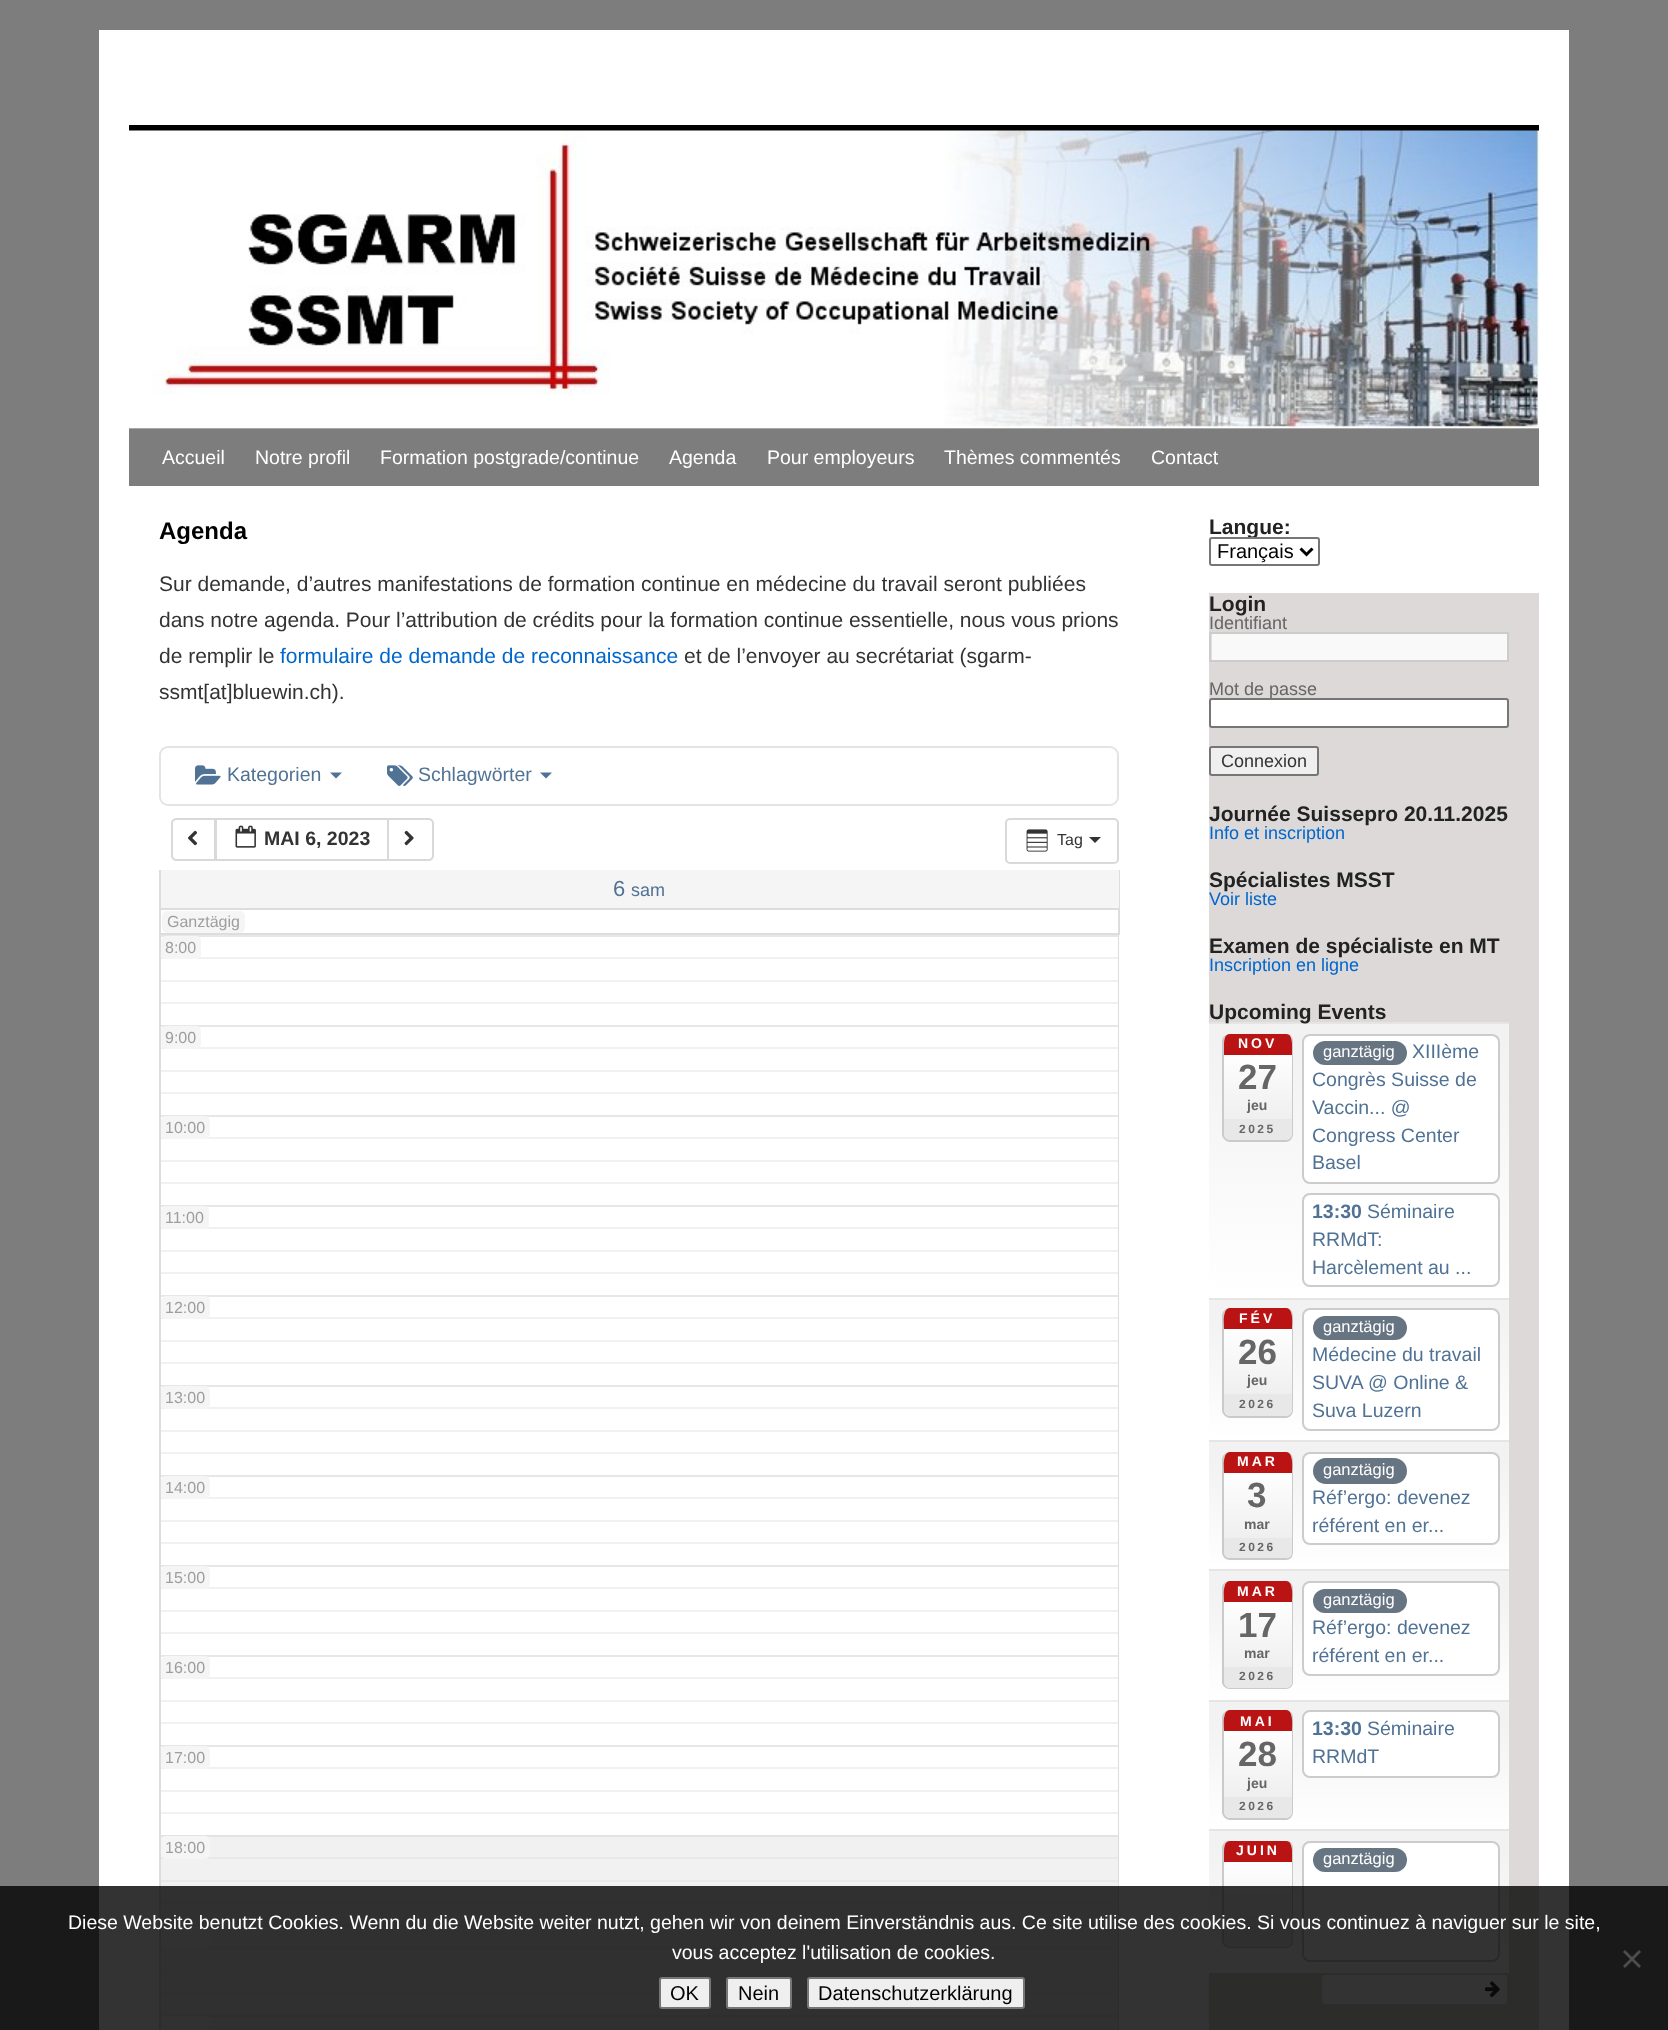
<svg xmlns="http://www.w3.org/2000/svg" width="1668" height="2030">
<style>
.a{font:19.5px Liberation Sans;fill:#fff}
.b{font:bold 24px Liberation Sans;fill:#000}
.c{font:21px Liberation Sans;fill:#333}
.d{font:21px Liberation Sans;fill:#06c}
.e{font:19.5px Liberation Sans;fill:#507295}
.f{font:bold 19.5px Liberation Sans;fill:#333}
.g{font:16px Liberation Sans;fill:#333}
.h{font:22px Liberation Sans;fill:#507295}
.i{font:18px Liberation Sans;fill:#507295}
.j{font:16px Liberation Sans;fill:#9e9e9e}
.k{font:bold 21px Liberation Sans;fill:#222}
.l{font:20px Liberation Sans;fill:#000}
.m{font:18px Liberation Sans;fill:#666}
.n{font:18px Liberation Sans;fill:#333}
.o{font:18px Liberation Sans;fill:#06c}
.p{font:bold 14px Liberation Sans;letter-spacing:3px;fill:#fff}
.q{font:bold 35px Liberation Sans;fill:#666}
.r{font:bold 14px Liberation Sans;fill:#666}
.s{font:bold 12px Liberation Sans;letter-spacing:2.5px;fill:#666}
.t{font:16.5px Liberation Sans;fill:#fff}
.u{font:bold 19.5px Liberation Sans;fill:#507295}
</style>
<defs>
<clipPath id="clip1"><path d="M1211 633h297v27H1211z"/></clipPath>
<linearGradient id="g1" gradientUnits="userSpaceOnUse" x1="1359" y1="1023" x2="1359" y2="1298"><stop offset="0" stop-color="#f2f2f2"/><stop offset="0.07" stop-color="#f2f2f2"/><stop offset="1" stop-color="#fff"/></linearGradient>
<clipPath id="clip2"><rect x="1223" y="1034" width="70" height="108" rx="8"/></clipPath>
<linearGradient id="g2" gradientUnits="userSpaceOnUse" x1="1258" y1="1034" x2="1258" y2="1140"><stop offset="0" stop-color="#fff"/><stop offset="0.16" stop-color="#fff"/><stop offset="1" stop-color="#eaeaea"/></linearGradient>
<linearGradient id="g3" gradientUnits="userSpaceOnUse" x1="1359" y1="1299" x2="1359" y2="1440"><stop offset="0" stop-color="#f2f2f2"/><stop offset="0.14" stop-color="#f2f2f2"/><stop offset="1" stop-color="#fff"/></linearGradient>
<clipPath id="clip3"><rect x="1223" y="1308" width="70" height="110" rx="8"/></clipPath>
<linearGradient id="g4" gradientUnits="userSpaceOnUse" x1="1258" y1="1308" x2="1258" y2="1416"><stop offset="0" stop-color="#fff"/><stop offset="0.16" stop-color="#fff"/><stop offset="1" stop-color="#eaeaea"/></linearGradient>
<linearGradient id="g5" gradientUnits="userSpaceOnUse" x1="1359" y1="1442" x2="1359" y2="1569"><stop offset="0" stop-color="#f2f2f2"/><stop offset="0.15" stop-color="#f2f2f2"/><stop offset="1" stop-color="#fff"/></linearGradient>
<clipPath id="clip4"><rect x="1223" y="1452" width="70" height="108" rx="8"/></clipPath>
<linearGradient id="g6" gradientUnits="userSpaceOnUse" x1="1258" y1="1452" x2="1258" y2="1559"><stop offset="0" stop-color="#fff"/><stop offset="0.16" stop-color="#fff"/><stop offset="1" stop-color="#eaeaea"/></linearGradient>
<linearGradient id="g7" gradientUnits="userSpaceOnUse" x1="1359" y1="1571" x2="1359" y2="1700"><stop offset="0" stop-color="#f2f2f2"/><stop offset="0.15" stop-color="#f2f2f2"/><stop offset="1" stop-color="#fff"/></linearGradient>
<clipPath id="clip5"><rect x="1223" y="1581" width="70" height="108" rx="8"/></clipPath>
<linearGradient id="g8" gradientUnits="userSpaceOnUse" x1="1258" y1="1581" x2="1258" y2="1688"><stop offset="0" stop-color="#fff"/><stop offset="0.16" stop-color="#fff"/><stop offset="1" stop-color="#eaeaea"/></linearGradient>
<linearGradient id="g9" gradientUnits="userSpaceOnUse" x1="1359" y1="1701" x2="1359" y2="1829"><stop offset="0" stop-color="#f2f2f2"/><stop offset="0.15" stop-color="#f2f2f2"/><stop offset="1" stop-color="#fff"/></linearGradient>
<clipPath id="clip6"><rect x="1223" y="1710" width="70" height="110" rx="8"/></clipPath>
<linearGradient id="g10" gradientUnits="userSpaceOnUse" x1="1258" y1="1710" x2="1258" y2="1818"><stop offset="0" stop-color="#fff"/><stop offset="0.16" stop-color="#fff"/><stop offset="1" stop-color="#eaeaea"/></linearGradient>
<linearGradient id="g11" gradientUnits="userSpaceOnUse" x1="1359" y1="1830" x2="1359" y2="1973"><stop offset="0" stop-color="#f2f2f2"/><stop offset="0.14" stop-color="#f2f2f2"/><stop offset="1" stop-color="#fff"/></linearGradient>
<clipPath id="clip7"><rect x="1223" y="1841" width="70" height="108" rx="8"/></clipPath>
<linearGradient id="g12" gradientUnits="userSpaceOnUse" x1="1258" y1="1841" x2="1258" y2="1947"><stop offset="0" stop-color="#fff"/><stop offset="0.16" stop-color="#fff"/><stop offset="1" stop-color="#eaeaea"/></linearGradient>
</defs>
<rect width="100%" height="100%" fill="#7d7d7d"/>
<path fill="#fff" d="M99 30h1470v2000H99z"/>
<path fill="#f1f1f1" d="M161 2017h957v13H161z"/>
<path fill="#e3e3e3" d="M159 2015h960v2H159z"/>
<path fill="#f1f1f1" d="M161 1927h957v88H161z"/>
<path fill="#e9e9e9" d="M159 1992h960v2H159z"/>
<path fill="#e9e9e9" d="M159 1970h960v2H159z"/>
<path fill="#e9e9e9" d="M159 1947h960v2H159z"/>
<path fill="#e3e3e3" d="M159 1925h960v2H159z"/>
<path fill="#f1f1f1" d="M161 1837h957v88H161z"/>
<path fill="#e9e9e9" d="M159 1902h960v2H159z"/>
<path fill="#e9e9e9" d="M159 1880h960v2H159z"/>
<path fill="#e9e9e9" d="M159 1857h960v2H159z"/>
<path fill="#e3e3e3" d="M159 1835h960v2H159z"/>
<path fill="#f1f1f1" d="M159 1812h960v2H159z"/>
<path fill="#f1f1f1" d="M159 1790h960v2H159z"/>
<path fill="#f1f1f1" d="M159 1767h960v2H159z"/>
<path fill="#e7e7e7" d="M159 1745h960v2H159z"/>
<path fill="#f1f1f1" d="M159 1722h960v2H159z"/>
<path fill="#f1f1f1" d="M159 1700h960v2H159z"/>
<path fill="#f1f1f1" d="M159 1677h960v2H159z"/>
<path fill="#e7e7e7" d="M159 1655h960v2H159z"/>
<path fill="#f1f1f1" d="M159 1632h960v2H159z"/>
<path fill="#f1f1f1" d="M159 1610h960v2H159z"/>
<path fill="#f1f1f1" d="M159 1587h960v2H159z"/>
<path fill="#e7e7e7" d="M159 1565h960v2H159z"/>
<path fill="#f1f1f1" d="M159 1542h960v2H159z"/>
<path fill="#f1f1f1" d="M159 1520h960v2H159z"/>
<path fill="#f1f1f1" d="M159 1497h960v2H159z"/>
<path fill="#e7e7e7" d="M159 1475h960v2H159z"/>
<path fill="#f1f1f1" d="M159 1452h960v2H159z"/>
<path fill="#f1f1f1" d="M159 1430h960v2H159z"/>
<path fill="#f1f1f1" d="M159 1407h960v2H159z"/>
<path fill="#e7e7e7" d="M159 1385h960v2H159z"/>
<path fill="#f1f1f1" d="M159 1362h960v2H159z"/>
<path fill="#f1f1f1" d="M159 1340h960v2H159z"/>
<path fill="#f1f1f1" d="M159 1317h960v2H159z"/>
<path fill="#e7e7e7" d="M159 1295h960v2H159z"/>
<path fill="#f1f1f1" d="M159 1272h960v2H159z"/>
<path fill="#f1f1f1" d="M159 1250h960v2H159z"/>
<path fill="#f1f1f1" d="M159 1227h960v2H159z"/>
<path fill="#e7e7e7" d="M159 1205h960v2H159z"/>
<path fill="#f1f1f1" d="M159 1182h960v2H159z"/>
<path fill="#f1f1f1" d="M159 1160h960v2H159z"/>
<path fill="#f1f1f1" d="M159 1137h960v2H159z"/>
<path fill="#e7e7e7" d="M159 1115h960v2H159z"/>
<path fill="#f1f1f1" d="M159 1092h960v2H159z"/>
<path fill="#f1f1f1" d="M159 1070h960v2H159z"/>
<path fill="#f1f1f1" d="M159 1047h960v2H159z"/>
<path fill="#e7e7e7" d="M159 1025h960v2H159z"/>
<path fill="#f1f1f1" d="M159 1002h960v2H159z"/>
<path fill="#f1f1f1" d="M159 980h960v2H159z"/>
<path fill="#f1f1f1" d="M159 957h960v2H159z"/>
<path fill="#e7e7e7" d="M159 935h960v2H159z"/>
<path fill="#000" d="M129 125h1410v6H129z"/>
<path fill="#a8a8a8" d="M129 428h1410v1H129z"/>
<image href="1.png" x="129" y="130" width="1410" height="298"/>
<path fill="#7d7d7d" d="M129 429h1410v57H129z"/>
<rect fill="none" stroke="#e4e4e4" stroke-width="2" x="160" y="747" width="958" height="58" rx="8"/>
<image href="2.png" x="195" y="765" width="26" height="20"/>
<path fill="#507295" d="M330 772.5h12l-6 6z"/>
<image href="3.png" x="387" y="765" width="26" height="21"/>
<path fill="#507295" d="M540 772.5h12l-6 6z"/>
<path fill="none" stroke="#d9d9d9" stroke-width="2" d="M176 819h39v41h-39c-2 0-4-2-4-4v-33c0-2 2-4 4-4z"/>
<image href="4.png" x="188" y="830" width="9" height="16"/>
<path fill="none" stroke="#d9d9d9" stroke-width="2" d="M216 819h172v41H216z"/>
<image href="5.png" x="235" y="825" width="21" height="23"/>
<path fill="#fff" stroke="#d9d9d9" stroke-width="2" d="M388 819h41c2 0 4 2 4 4v33c0 2-2 4-4 4h-41z"/>
<image href="6.png" x="404" y="830" width="10" height="16"/>
<rect fill="none" stroke="#d9d9d9" stroke-width="2" x="1006" y="819" width="112" height="44" rx="4"/>
<image href="7.png" x="1026" y="829" width="22" height="23"/>
<path fill="#333" d="M1089 837h12l-6 6z"/>
<path fill="#ddd" d="M1118 870h2v65H1118z"/>
<path fill="#ddd" d="M159 870h2v965H159z"/>
<path fill="#f5f5f5" d="M161 870h958v38H161z"/>
<path fill="#ddd" d="M159 908h960v2H159z"/>
<path fill="#ddd" d="M159 933h960v2H159z"/>
<rect fill="#f5f5f5" x="162" y="911" width="83" height="22" rx="5"/>
<path fill="#ddd" d="M1118 935h1v900H1118z"/>
<path fill="#ddd" d="M1118 1835h1v195H1118z"/>
<path fill="#ddd" d="M159 1835h2v195H159z"/>
<rect fill="#f5f5f5" x="161" y="936" width="40" height="23" rx="5"/>
<rect fill="#f5f5f5" x="161" y="1026" width="40" height="23" rx="5"/>
<rect fill="#f5f5f5" x="161" y="1116" width="49" height="23" rx="5"/>
<rect fill="#f5f5f5" x="161" y="1206" width="48" height="23" rx="5"/>
<rect fill="#f5f5f5" x="161" y="1296" width="49" height="23" rx="5"/>
<rect fill="#f5f5f5" x="161" y="1386" width="49" height="23" rx="5"/>
<rect fill="#f5f5f5" x="161" y="1476" width="49" height="23" rx="5"/>
<rect fill="#f5f5f5" x="161" y="1566" width="49" height="23" rx="5"/>
<rect fill="#f5f5f5" x="161" y="1656" width="49" height="23" rx="5"/>
<rect fill="#f5f5f5" x="161" y="1746" width="49" height="23" rx="5"/>
<rect fill="#f5f5f5" x="161" y="1836" width="49" height="23" rx="5"/>
<rect fill="#f5f5f5" x="161" y="1926" width="49" height="23" rx="5"/>
<rect fill="#f5f5f5" x="161" y="2016" width="49" height="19" rx="5"/>
<path fill="#dcd9d8" d="M1209 593h330v1437H1209z"/>
<path fill="#f9f9f9" d="M1212 634h295v26H1212z"/>
<g clip-path="url(#clip1)">
<path fill="#e0e0e0" fill-rule="evenodd" d="M1062 484h594v324h-594zm150 150h297v28h-297z"/>
</g>
<path fill="none" stroke="#ccc" stroke-width="2" d="M1210 633h298v28H1210z"/>
<rect fill="#efefef" stroke="#767676" stroke-width="2" x="1210" y="747" width="108" height="28" rx="2"/>
<path fill="url(#g1)" d="M1209 1024h300v274H1209z"/>
<path fill="#e5e5e5" d="M1209 1022h300v2H1209z"/>
<g clip-path="url(#clip2)">
<path fill="url(#g2)" d="M1224 1034h68v106H1224z"/>
</g>
<path fill="#cacaca" fill-rule="evenodd" d="M1230 1034h56c4 0 7 3 7 7v93c0 4-3 8-7 8h-56c-4 0-8-4-8-8v-93c0-4 4-7 8-7zm0 0h56c3 0 6 3 6 7v93c0 3-3 6-6 6h-56c-3 0-6-3-6-6v-93c0-4 3-7 6-7z"/>
<path fill="#ba1313" d="M1230 1034c-6 0-6 7-6 12v9h68v-9c0-4 0-12-6-12z"/>
<path fill="#e8e8e8" d="M1224 1119v15c0 3 3 6 6 6h56c3 0 6-3 6-6v-15z"/>
<rect fill="#fff" stroke="#ccc" stroke-width="2" x="1303" y="1035" width="196" height="148" rx="7"/>
<rect fill="#677583" x="1313" y="1041" width="94" height="24" rx="12"/>
<rect fill="#fff" stroke="#ccc" stroke-width="2" x="1303" y="1194" width="196" height="92" rx="7"/>
<path fill="url(#g3)" d="M1209 1300h300v140H1209z"/>
<path fill="#e5e5e5" d="M1209 1298h300v2H1209z"/>
<g clip-path="url(#clip3)">
<path fill="url(#g4)" d="M1224 1308h68v108H1224z"/>
</g>
<path fill="#cacaca" fill-rule="evenodd" d="M1230 1308h56c4 0 7 3 7 8v94c0 4-3 8-7 8h-56c-4 0-8-4-8-8v-94c0-5 4-8 8-8zm0 0h56c3 0 6 3 6 8v94c0 3-3 6-6 6h-56c-3 0-6-3-6-6v-94c0-5 3-8 6-8z"/>
<path fill="#ba1313" d="M1230 1308c-8 0-6 16-6 21h68c0-5 2-21-6-21z"/>
<path fill="#e8e8e8" d="M1224 1394v16c0 3 3 6 6 6h56c3 0 6-3 6-6v-16z"/>
<rect fill="#fff" stroke="#ccc" stroke-width="2" x="1303" y="1309" width="196" height="121" rx="7"/>
<rect fill="#677583" x="1313" y="1316" width="94" height="24" rx="12"/>
<path fill="url(#g5)" d="M1209 1442h300v127H1209z"/>
<path fill="#e5e5e5" d="M1209 1440h300v2H1209z"/>
<g clip-path="url(#clip4)">
<path fill="url(#g6)" d="M1224 1452h68v107H1224z"/>
</g>
<path fill="#cacaca" fill-rule="evenodd" d="M1230 1452h56c4 0 7 3 7 8v92c0 5-3 8-7 8h-56c-4 0-8-3-8-8v-92c0-5 4-8 8-8zm0 0h56c3 0 6 3 6 8v92c0 4-3 6-6 6h-56c-3 0-6-2-6-6v-92c0-5 3-8 6-8z"/>
<path fill="#ba1313" d="M1230 1452c-8 0-6 16-6 21h68c0-5 2-21-6-21z"/>
<path fill="#e8e8e8" d="M1224 1538v14c0 4 3 6 6 6h56c3 0 6-2 6-6v-14z"/>
<rect fill="#fff" stroke="#ccc" stroke-width="2" x="1303" y="1453" width="196" height="91" rx="7"/>
<rect fill="#677583" x="1313" y="1458" width="94" height="26" rx="13"/>
<path fill="url(#g7)" d="M1209 1571h300v129H1209z"/>
<path fill="#e5e5e5" d="M1209 1569h300v2H1209z"/>
<g clip-path="url(#clip5)">
<path fill="url(#g8)" d="M1224 1581h68v107H1224z"/>
</g>
<path fill="#cacaca" fill-rule="evenodd" d="M1230 1581h56c4 0 7 3 7 7v94c0 4-3 7-7 7h-56c-4 0-8-3-8-7v-94c0-4 4-7 8-7zm0 0h56c3 0 6 3 6 7v94c0 3-3 6-6 6h-56c-3 0-6-3-6-6v-94c0-4 3-7 6-7z"/>
<path fill="#ba1313" d="M1230 1581c-8 0-6 16-6 21h68c0-5 2-21-6-21z"/>
<path fill="#e8e8e8" d="M1224 1667v15c0 3 3 6 6 6h56c3 0 6-3 6-6v-15z"/>
<rect fill="#fff" stroke="#ccc" stroke-width="2" x="1303" y="1582" width="196" height="93" rx="7"/>
<rect fill="#677583" x="1313" y="1589" width="94" height="24" rx="12"/>
<path fill="url(#g9)" d="M1209 1702h300v127H1209z"/>
<path fill="#e5e5e5" d="M1209 1700h300v2H1209z"/>
<g clip-path="url(#clip6)">
<path fill="url(#g10)" d="M1224 1710h68v108H1224z"/>
</g>
<path fill="#cacaca" fill-rule="evenodd" d="M1230 1710h56c4 0 7 3 7 8v94c0 4-3 8-7 8h-56c-4 0-8-4-8-8v-94c0-5 4-8 8-8zm0 0h56c3 0 6 3 6 8v94c0 3-3 6-6 6h-56c-3 0-6-3-6-6v-94c0-5 3-8 6-8z"/>
<path fill="#ba1313" d="M1230 1710c-8 0-6 16-6 21h68c0-5 2-21-6-21z"/>
<path fill="#e8e8e8" d="M1224 1797v15c0 3 3 6 6 6h56c3 0 6-3 6-6v-15z"/>
<rect fill="#fff" stroke="#ccc" stroke-width="2" x="1303" y="1711" width="196" height="66" rx="7"/>
<path fill="url(#g11)" d="M1209 1831h300v142H1209z"/>
<path fill="#e5e5e5" d="M1209 1829h300v2H1209z"/>
<g clip-path="url(#clip7)">
<path fill="url(#g12)" d="M1224 1841h68v106H1224z"/>
</g>
<path fill="#cacaca" fill-rule="evenodd" d="M1230 1840h56c4 0 7 4 7 8v93c0 4-3 7-7 7h-56c-4 0-8-3-8-7v-93c0-4 4-8 8-8zm0 0h56c3 0 6 4 6 8v93c0 3-3 6-6 6h-56c-3 0-6-3-6-6v-93c0-4 3-8 6-8z"/>
<path fill="#ba1313" d="M1230 1841c-6 0-6 7-6 12v9h68v-9c0-4 0-12-6-12z"/>
<path fill="#e8e8e8" d="M1224 1926v15c0 3 3 6 6 6h56c3 0 6-3 6-6v-15z"/>
<rect fill="#fff" stroke="#ccc" stroke-width="2" x="1303" y="1842" width="196" height="119" rx="7"/>
<rect fill="#677583" x="1313" y="1848" width="94" height="24" rx="12"/>
<rect fill="#fff" stroke="#d9d9d9" stroke-width="2" x="1321" y="1974" width="187" height="31" rx="4"/>
<image href="8.png" x="1485" y="1981" width="15" height="16"/>
<path fill="#000000cc" d="M0 1886h1668v144H0z"/>
<path fill="#4d4d4d" d="M1639 1950l2 2l-16 16l-2-2z"/>
<path fill="#4d4d4d" d="M1623 1952l2-2l16 16l-2 2z"/>
<rect fill="#efefef" stroke="#767676" stroke-width="2" x="660" y="1978" width="50" height="30" rx="2"/>
<rect fill="#efefef" stroke="#767676" stroke-width="2" x="727" y="1978" width="64" height="30" rx="2"/>
<rect fill="#efefef" stroke="#767676" stroke-width="2" x="808" y="1978" width="216" height="30" rx="2"/>
<text class="a" x="162" y="464">Accueil</text>
<text class="a" x="255" y="464">Notre profil</text>
<text class="a" x="380" y="464">Formation postgrade/continue</text>
<text class="a" x="669" y="464">Agenda</text>
<text class="a" x="767" y="464">Pour employeurs</text>
<text class="a" x="944" y="464">Thèmes commentés</text>
<text class="a" x="1151" y="464">Contact</text>
<text class="b" x="159" y="539">Agenda</text>
<text class="c" x="159" y="591">Sur demande, d’autres manifestations de formation continue en médecine du travail seront publiées</text>
<text class="c" x="159" y="627">dans notre agenda. Pour l’attribution de crédits pour la formation continue essentielle, nous vous prions</text>
<text class="c" x="159" y="663">de remplir le</text>
<text class="d" x="280" y="663">formulaire de demande de reconnaissance</text>
<text class="c" x="684" y="663">et de l’envoyer au secrétariat (sgarm-</text>
<text class="c" x="159" y="699">ssmt[at]bluewin.ch).</text>
<text class="e" x="227" y="781">Kategorien</text>
<text class="e" x="418" y="781">Schlagwörter</text>
<text class="f" x="264" y="845">MAI 6, 2023</text>
<text class="g" x="1057" y="845">Tag</text>
<text class="h" x="613" y="896">6</text>
<text class="i" x="631" y="896">sam</text>
<text class="j" x="167" y="927">Ganztägig</text>
<text class="j" x="165" y="953">8:00</text>
<text class="j" x="165" y="1043">9:00</text>
<text class="j" x="165" y="1133">10:00</text>
<text class="j" x="165" y="1223">11:00</text>
<text class="j" x="165" y="1313">12:00</text>
<text class="j" x="165" y="1403">13:00</text>
<text class="j" x="165" y="1493">14:00</text>
<text class="j" x="165" y="1583">15:00</text>
<text class="j" x="165" y="1673">16:00</text>
<text class="j" x="165" y="1763">17:00</text>
<text class="j" x="165" y="1853">18:00</text>
<text class="k" x="1209" y="534">Langue:</text>
<rect fill="#fff" stroke="#767676" stroke-width="2" x="1210" y="538" width="109" height="27" rx="2"/>
<path fill="none" stroke="#000" stroke-width="3" d="M1300.5 548.5l6 6l6-6"/>
<text class="l" x="1217" y="558">Français</text>
<text class="k" x="1209" y="611">Login</text>
<text class="m" x="1209" y="629">Identifiant</text>
<text class="m" x="1209" y="695">Mot de passe</text>
<rect fill="#fff" stroke="#767676" stroke-width="2" x="1210" y="699" width="298" height="28" rx="2"/>
<text class="n" x="1221" y="767">Connexion</text>
<text class="k" x="1209" y="821">Journée Suissepro 20.11.2025</text>
<text class="o" x="1209" y="839">Info et inscription</text>
<text class="k" x="1209" y="887">Spécialistes MSST</text>
<text class="o" x="1209" y="905">Voir liste</text>
<text class="k" x="1209" y="953">Examen de spécialiste en MT</text>
<text class="o" x="1209" y="971">Inscription en ligne</text>
<text class="k" x="1209" y="1019">Upcoming Events</text>
<text class="p" x="1238" y="1048">NOV</text>
<text class="q" x="1238" y="1089">27</text>
<text class="r" x="1247" y="1110">jeu</text>
<text class="s" x="1239" y="1133">2025</text>
<text class="t" x="1323" y="1057">ganztägig</text>
<text class="e" x="1412" y="1058">XIIIème</text>
<text class="e" x="1312" y="1086">Congrès Suisse de</text>
<text class="e" x="1312" y="1114">Vaccin... @</text>
<text class="e" x="1312" y="1142">Congress Center</text>
<text class="e" x="1312" y="1169">Basel</text>
<text class="u" x="1312" y="1218">13:30</text>
<text class="e" x="1367" y="1218">Séminaire</text>
<text class="e" x="1312" y="1246">RRMdT:</text>
<text class="e" x="1312" y="1274">Harcèlement au ...</text>
<text class="p" x="1239" y="1323">FÉV</text>
<text class="q" x="1238" y="1364">26</text>
<text class="r" x="1247" y="1385">jeu</text>
<text class="s" x="1239" y="1408">2026</text>
<text class="t" x="1323" y="1332">ganztägig</text>
<text class="e" x="1312" y="1361">Médecine du travail</text>
<text class="e" x="1312" y="1389">SUVA @ Online &amp;</text>
<text class="e" x="1312" y="1417">Suva Luzern</text>
<text class="p" x="1237" y="1466">MAR</text>
<text class="q" x="1247" y="1507">3</text>
<text class="r" x="1244" y="1529">mar</text>
<text class="s" x="1239" y="1551">2026</text>
<text class="t" x="1323" y="1475">ganztägig</text>
<text class="e" x="1312" y="1504">Réf’ergo: devenez</text>
<text class="e" x="1312" y="1532">référent en er...</text>
<text class="p" x="1237" y="1596">MAR</text>
<text class="q" x="1238" y="1637">17</text>
<text class="r" x="1244" y="1658">mar</text>
<text class="s" x="1239" y="1680">2026</text>
<text class="t" x="1323" y="1605">ganztägig</text>
<text class="e" x="1312" y="1634">Réf’ergo: devenez</text>
<text class="e" x="1312" y="1662">référent en er...</text>
<text class="p" x="1240" y="1726">MAI</text>
<text class="q" x="1238" y="1766">28</text>
<text class="r" x="1247" y="1788">jeu</text>
<text class="s" x="1239" y="1810">2026</text>
<text class="u" x="1312" y="1735">13:30</text>
<text class="e" x="1367" y="1735">Séminaire</text>
<text class="e" x="1312" y="1763">RRMdT</text>
<text class="p" x="1236" y="1855">JUIN</text>
<text class="t" x="1323" y="1864">ganztägig</text>
<text class="a" x="68" y="1929">Diese Website benutzt Cookies. Wenn du die Website weiter nutzt, gehen wir von deinem Einverständnis aus. Ce site utilise des cookies. Si vous continuez à naviguer sur le site,</text>
<text class="a" x="672" y="1959">vous acceptez l'utilisation de cookies.</text>
<text class="l" x="670" y="2000">OK</text>
<text class="l" x="738" y="2000">Nein</text>
<text class="l" x="818" y="2000">Datenschutzerklärung</text>
</svg>
